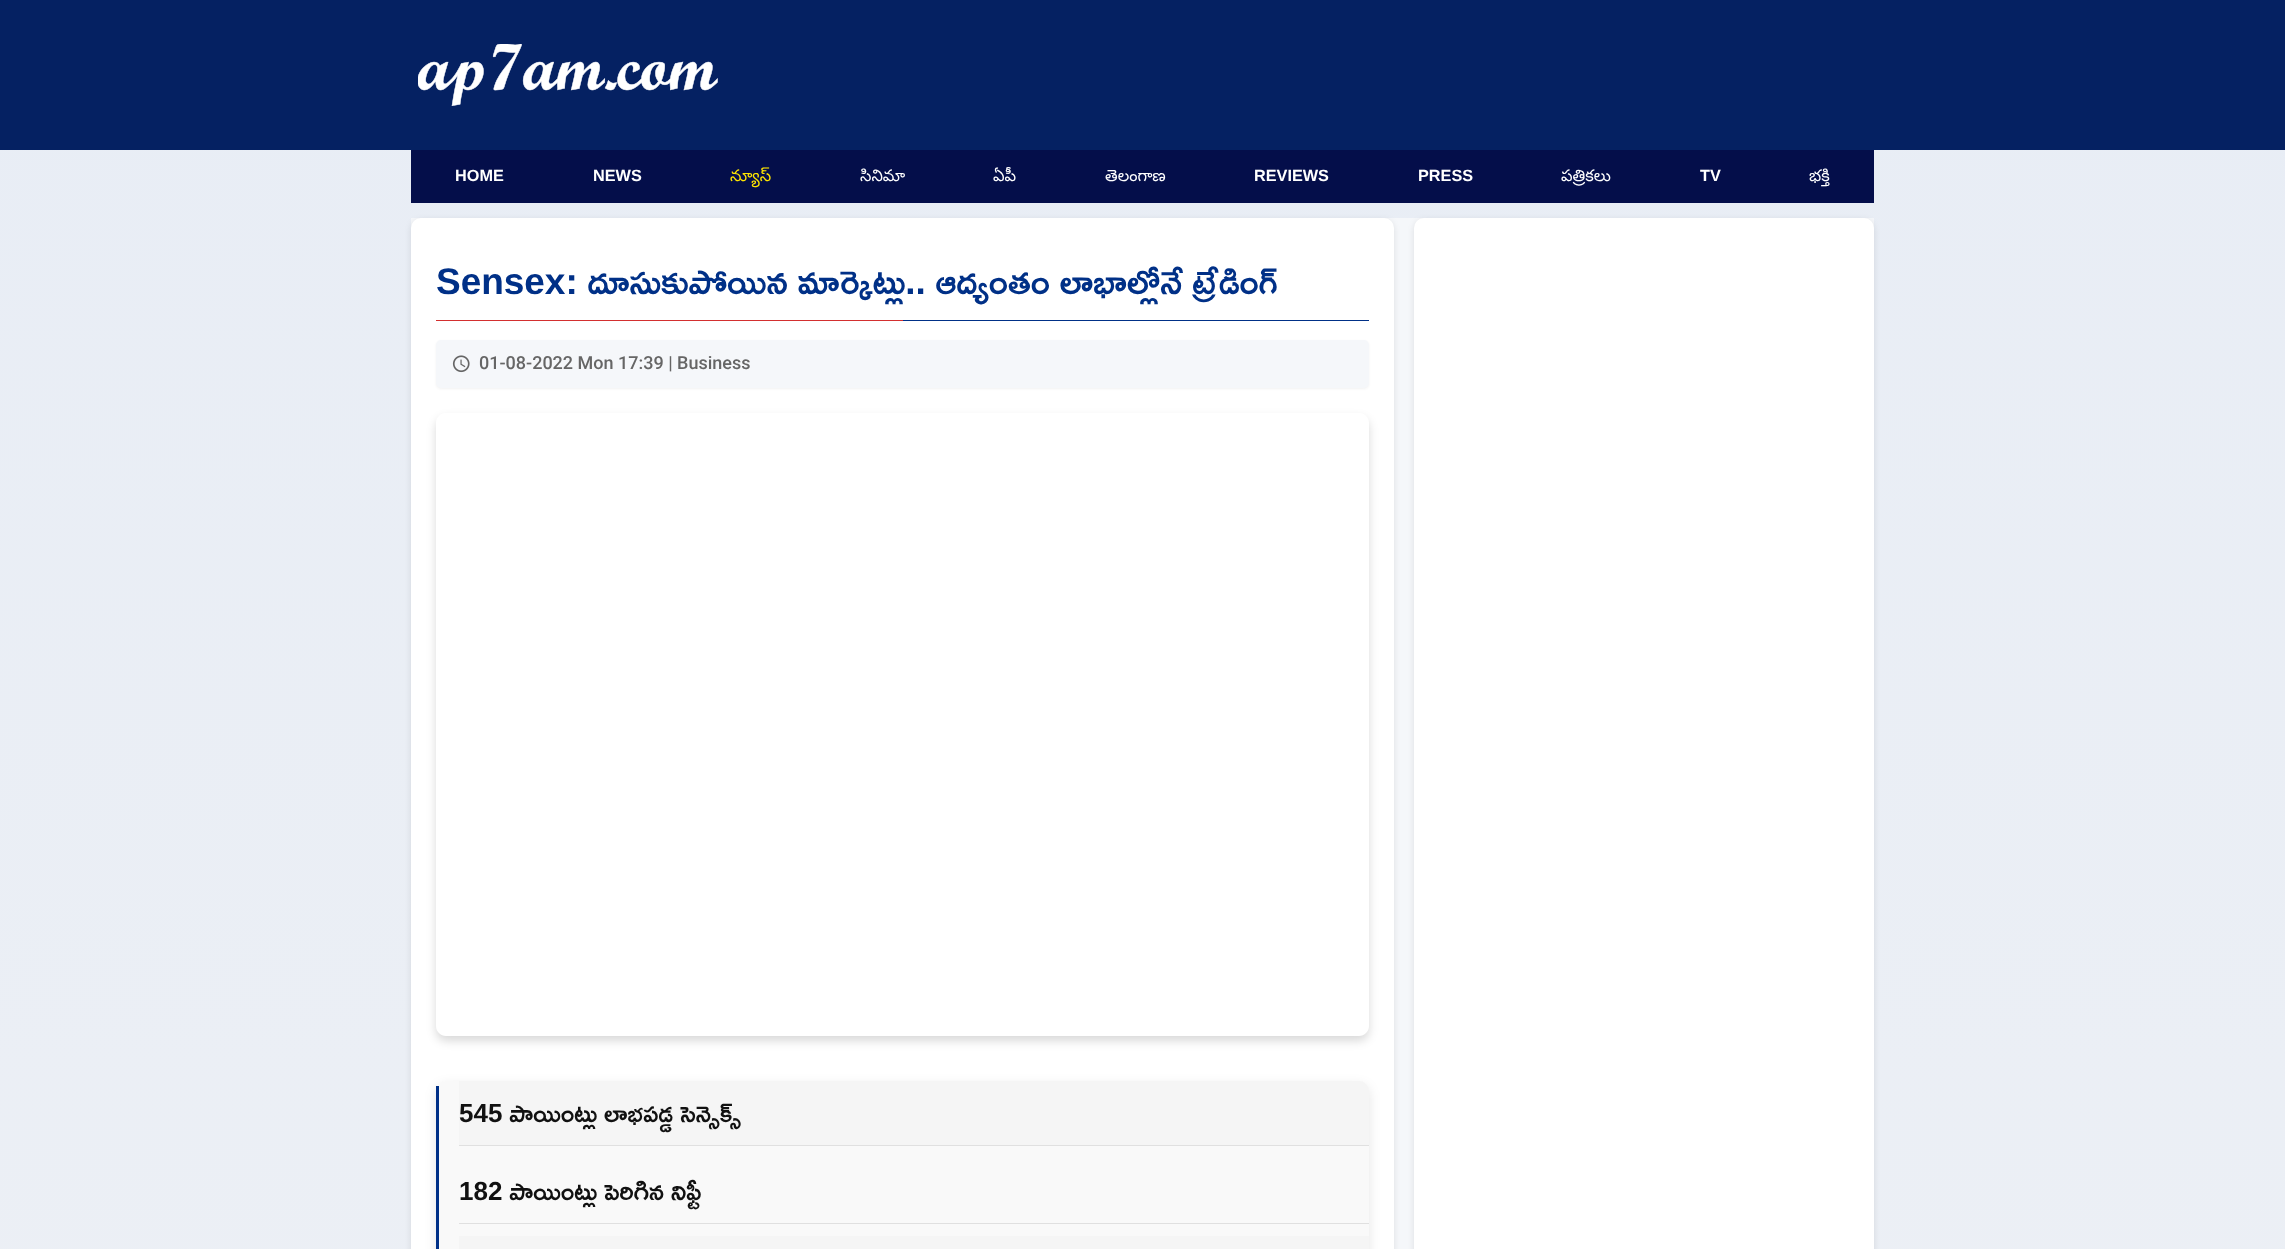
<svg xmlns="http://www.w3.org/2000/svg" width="2285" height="1249">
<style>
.a{font:bold 16.25px Liberation Sans;fill:#fff}
.b{font:16.25px Noto Sans Telugu;fill:#ffe500}
.c{font:16.25px Noto Sans Telugu;fill:#fff}
.d{font:37px Ramabhadra;fill:#003087}
.e{font:500 18px Roboto;fill:#666}
.f{font:26px Ramabhadra;fill:#111}
</style>
<defs>
<linearGradient id="g1" gradientUnits="userSpaceOnUse" x1="1142" y1="0" x2="1143" y2="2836"><stop offset="0" stop-color="#e8edf5"/><stop offset="1" stop-color="#f0f2f5"/></linearGradient>
<clipPath id="clip1"><path d="M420 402h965v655h-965zm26 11h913c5.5 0 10 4.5 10 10v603c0 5.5-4.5 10-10 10h-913c-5.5 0-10-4.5-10-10v-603c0-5.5 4.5-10 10-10z" clip-rule="evenodd"/></clipPath>
</defs>
<rect width="100%" height="100%" fill="#fff"/>
<path fill="url(#g1)" d="M0 150h2285v1099H0z"/>
<path fill="#052162" d="M0 0h2285v150H0z"/>
<image href="1.png" x="418" y="44" width="300" height="62"/>
<path fill="#040e4a" d="M411 150h1463v53H411z"/>
<path fill="#f5f7fa" d="M411 218h1463v1031H411z"/>
<rect fill="#0000001a" filter="blur(3px)" x="411" y="220" width="983" height="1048" rx="10"/>
<rect fill="#fff" x="411" y="218" width="983" height="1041" rx="10"/>
<path fill="#003087" d="M903 320h466v1H903z"/>
<path fill="#d32f2f" d="M436 320h467v1H436z"/>
<rect fill="#0000000d" filter="blur(1px)" x="436" y="341" width="933" height="48" rx="5"/>
<rect fill="#f5f7fa" x="436" y="340" width="933" height="48" rx="5"/>
<image href="2.png" x="452" y="355" width="18" height="18"/>
<g clip-path="url(#clip1)">
<rect fill="#00000026" filter="blur(5px)" x="436" y="418" width="933" height="623" rx="10"/>
</g>
<rect fill="#0000001a" filter="blur(6px)" x="436" y="1085" width="933" height="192" rx="10"/>
<rect fill="#f9f9f9" x="436" y="1081" width="933" height="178" rx="10"/>
<path fill="#003087" d="M436 1086h3v163H436z"/>
<path fill="#f5f5f5" d="M1369 1146v-55c0-5-5-10-10-10h-900v65z"/>
<path fill="#e0e0e0" d="M459 1145h910v1H459z"/>
<path fill="#e0e0e0" d="M459 1223h910v1H459z"/>
<path fill="#f5f5f5" d="M459 1236h910v13H459z"/>
<rect fill="#0000001a" filter="blur(3px)" x="1414" y="220" width="460" height="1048" rx="10"/>
<rect fill="#fff" x="1414" y="218" width="460" height="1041" rx="10"/>
<text class="a" x="455" y="181">HOME</text>
<text class="a" x="593" y="181">NEWS</text>
<text class="b" x="730" y="181">న్యూస్</text>
<text class="c" x="860" y="181">సినిమా</text>
<text class="c" x="993" y="181">ఏపీ</text>
<text class="c" x="1105" y="181">తెలంగాణ</text>
<text class="a" x="1254" y="181">REVIEWS</text>
<text class="a" x="1418" y="181">PRESS</text>
<text class="c" x="1561" y="181">పత్రికలు</text>
<text class="a" x="1700" y="181">TV</text>
<text class="c" x="1809" y="181">భక్తి</text>
<text class="d" x="436" y="294">Sensex: దూసుకుపోయిన మార్కెట్లు.. ఆద్యంతం లాభాల్లోనే ట్రేడింగ్</text>
<text class="e" x="479" y="369">01-08-2022 Mon 17:39 | Business</text>
<text class="f" x="459" y="1122">545 పాయింట్లు లాభపడ్డ సెన్సెక్స్</text>
<text class="f" x="459" y="1200">182 పాయింట్లు పెరిగిన నిఫ్టీ</text>
</svg>
